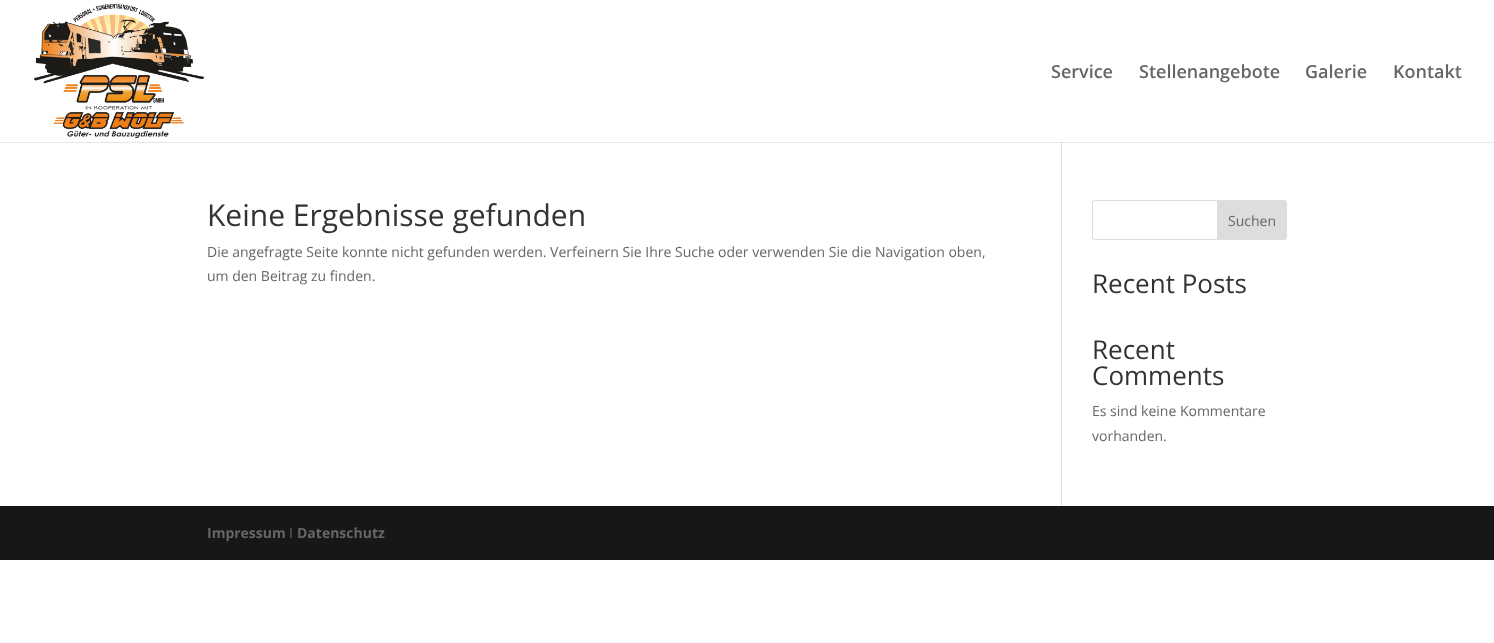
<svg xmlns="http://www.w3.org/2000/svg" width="1494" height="643">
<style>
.a{font:600 18px Open Sans;fill:#666}
.b{font:30px Open Sans;fill:#333}
.c{font:14px Open Sans;fill:#666}
.d{font:26px Open Sans;fill:#333}
.e{font:bold 14px Open Sans;fill:#666}
</style>
<rect width="100%" height="100%" fill="#fff"/>
<path fill="#e6e6e6" d="M0 142h1494v1H0z"/>
<image href="1.png" x="34" y="4" width="170" height="134"/>
<path fill="#e2e2e2" d="M1061 142h1v364H1061z"/>
<path fill="#cbcbcb" d="M1061 142h1v1H1061z"/>
<rect fill="none" stroke="#ddd" x="1092.5" y="200.5" width="194" height="39" rx="2.5"/>
<path fill="#ddd" stroke="#ddd" d="M1217.5 200.5h66.5c1.5 0 2.5 1 2.5 2.5v34c0 1.5-1 2.5-2.5 2.5h-66.5z"/>
<path fill="#171717" d="M0 506h1494v54H0z"/>
<text class="a" x="1051" y="78">Service</text>
<text class="a" x="1139" y="78">Stellenangebote</text>
<text class="a" x="1305" y="78">Galerie</text>
<text class="a" x="1393" y="78">Kontakt</text>
<text class="b" x="207" y="226">Keine Ergebnisse gefunden</text>
<text class="c" x="207" y="257">Die angefragte Seite konnte nicht gefunden werden. Verfeinern Sie Ihre Suche oder verwenden Sie die Navigation oben,</text>
<text class="c" x="207" y="281">um den Beitrag zu finden.</text>
<text class="c" x="1228" y="226">Suchen</text>
<text class="d" x="1092" y="293">Recent Posts</text>
<text class="d" x="1092" y="359">Recent</text>
<text class="d" x="1092" y="385">Comments</text>
<text class="c" x="1092" y="416">Es sind keine Kommentare</text>
<text class="c" x="1092" y="441">vorhanden.</text>
<text class="e" x="207" y="538">Impressum</text>
<text class="c" x="289" y="538">I</text>
<text class="e" x="297" y="538">Datenschutz</text>
</svg>
